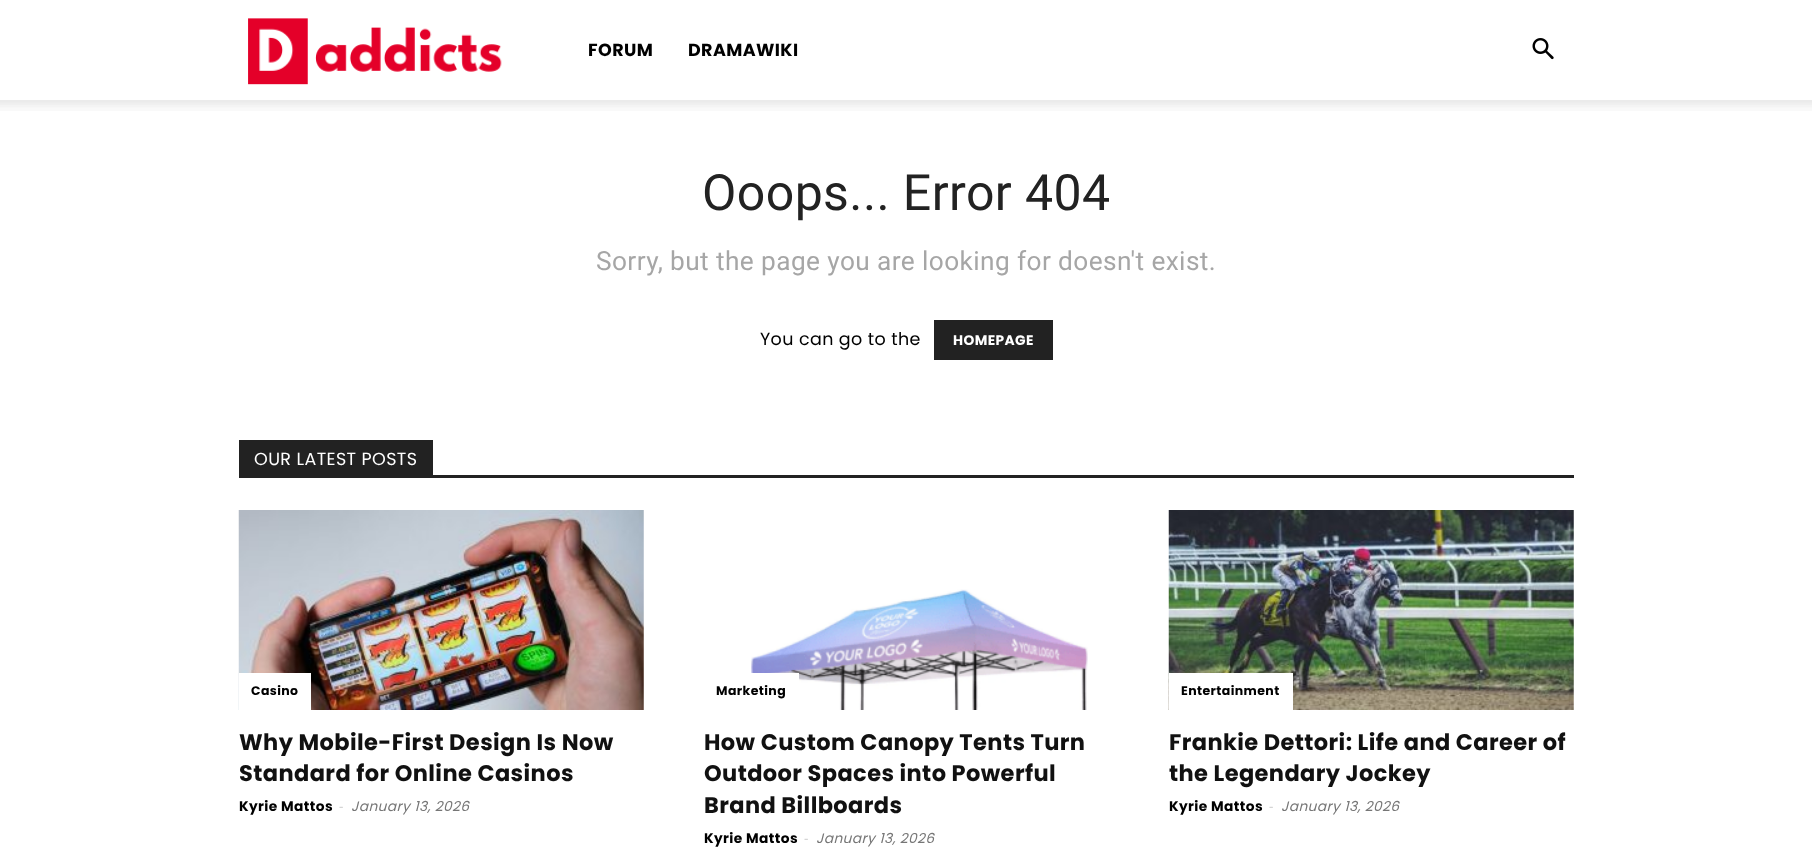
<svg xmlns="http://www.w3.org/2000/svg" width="1812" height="857">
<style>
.a{font:bold 17.5px Poppins;letter-spacing:0.4px;fill:#000}
.b{font:50px Roboto;letter-spacing:0.4px;fill:#222}
.c{font:26.25px Roboto;letter-spacing:0.4px;fill:#a6a6a6}
.d{font:17.5px Poppins;letter-spacing:0.4px;fill:#000}
.e{font:bold 13.75px Poppins;letter-spacing:0.4px;fill:#fff}
.f{font:17.5px Poppins;letter-spacing:0.4px;fill:#fff}
.g{font:bold 12.5px Poppins;letter-spacing:0.4px;fill:#000}
.h{font:bold 22.5px Poppins;letter-spacing:0.4px;fill:#111}
.i{font:bold 13.75px Poppins;letter-spacing:0.4px;fill:#000}
.j{font:13.75px Open Sans;letter-spacing:0.4px;fill:#ccc}
.k{font:italic 13.75px Poppins;letter-spacing:0.4px;fill:#767676}
</style>
<rect width="100%" height="100%" fill="#fff"/>
<image href="1.png" x="248" y="18" width="254" height="67"/>
<image href="2.png" x="1532" y="38" width="22" height="22"/>
<image href="3.png" x="0" y="100" width="1812" height="11"/>
<path fill="#222" d="M934 320h119v40H934z"/>
<path fill="#222" d="M239 475h1335v3H239z"/>
<path fill="#222" d="M239 440h194v35H239z"/>
<image href="4.png" x="238" y="510" width="406" height="200"/>
<path fill="#fff" d="M239 673h72v37H239z"/>
<image href="5.png" x="751" y="589" width="337" height="121"/>
<path fill="#fff" d="M751 673h48v37H751z"/>
<image href="6.png" x="1168" y="510" width="406" height="200"/>
<path fill="#fff" d="M1169 673h124v37H1169z"/>
<text class="a" x="588" y="56">FORUM</text>
<text class="a" x="688" y="56">DRAMAWIKI</text>
<text class="b" x="702" y="210">Ooops... Error 404</text>
<text class="c" x="596" y="270">Sorry, but the page you are looking for doesn't exist.</text>
<text class="d" x="760" y="345">You can go to the</text>
<text class="e" x="953" y="345">HOMEPAGE</text>
<text class="f" x="254" y="465">OUR LATEST POSTS</text>
<text class="g" x="251" y="695">Casino</text>
<text class="h" x="239" y="750">Why Mobile-First Design Is Now</text>
<text class="h" x="239" y="781">Standard for Online Casinos</text>
<text class="i" x="239" y="811">Kyrie Mattos</text>
<text class="j" x="339" y="811">-</text>
<text class="k" x="351" y="811">January 13, 2026</text>
<text class="g" x="716" y="695">Marketing</text>
<text class="h" x="704" y="750">How Custom Canopy Tents Turn</text>
<text class="h" x="704" y="781">Outdoor Spaces into Powerful</text>
<text class="h" x="704" y="813">Brand Billboards</text>
<text class="i" x="704" y="843">Kyrie Mattos</text>
<text class="j" x="804" y="843">-</text>
<text class="k" x="816" y="843">January 13, 2026</text>
<text class="g" x="1181" y="695">Entertainment</text>
<text class="h" x="1169" y="750">Frankie Dettori: Life and Career of</text>
<text class="h" x="1169" y="781">the Legendary Jockey</text>
<text class="i" x="1169" y="811">Kyrie Mattos</text>
<text class="j" x="1269" y="811">-</text>
<text class="k" x="1281" y="811">January 13, 2026</text>
</svg>
